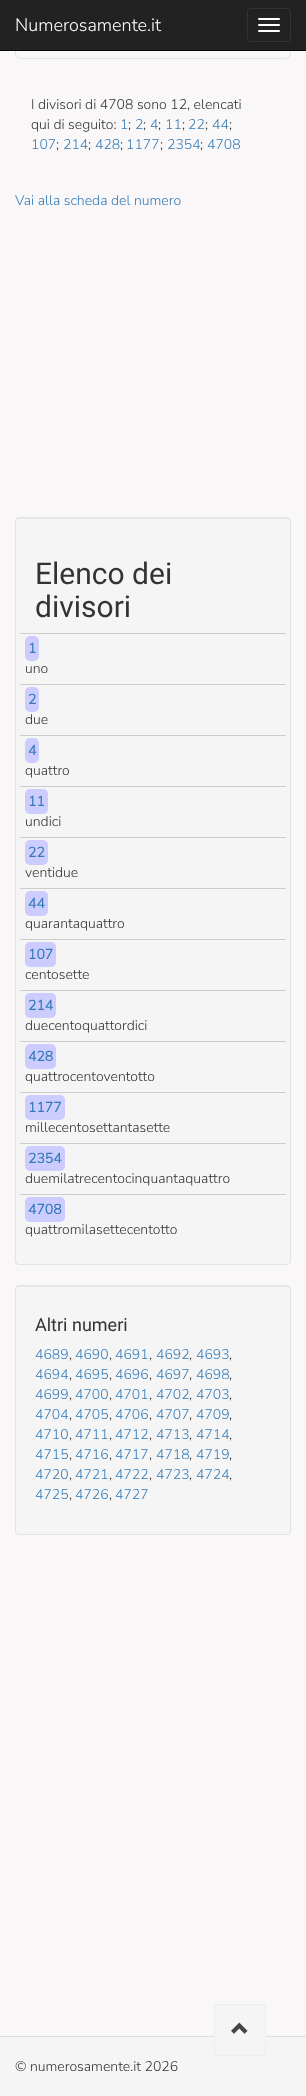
<svg xmlns="http://www.w3.org/2000/svg" width="306" height="2096">
<style>
.a{font:200 18px Nunito Sans;fill:#fff}
.b{font:200 14px Nunito Sans;fill:#333}
.c{font:200 14px Nunito Sans;fill:#337ab7}
.d{font:30px Roboto;fill:#333}
.e{font:bold 14px Nunito Sans;fill:#337ab7}
.f{font:18px Roboto;fill:#333}
</style>
<rect width="100%" height="100%" fill="#f9f7f7"/>
<rect fill="none" stroke="#e3e3e3" x="15.5" y="-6.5" width="275" height="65" rx="5.5"/>
<path fill="#222" d="M0 0h306v50H0z"/>
<path fill="#080808" d="M0 50h306v1H0z"/>
<rect fill="none" stroke="#333" x="247.5" y="8.5" width="43" height="33" rx="3.5"/>
<rect fill="#fff" x="258" y="18" width="22" height="2" rx="1"/>
<rect fill="#fff" x="258" y="24" width="22" height="2" rx="1"/>
<rect fill="#fff" x="258" y="30" width="22" height="2" rx="1"/>
<rect fill="#f5f5f5" x="15" y="517" width="276" height="748" rx="4"/>
<path fill="#e9e9e9" d="M19 519h268c2 0 3 1 3 3v-1c0-2-1-3-3-3h-268c-2 0-3 1-3 3v1c0-2 1-3 3-3z"/>
<rect fill="none" stroke="#e3e3e3" x="15.5" y="517.5" width="275" height="747" rx="3.5"/>
<path fill="#ccc" d="M20 633h266v1H20z"/>
<rect fill="#ccf" x="25" y="636" width="14" height="25" rx="5"/>
<path fill="#ccc" d="M20 684h266v1H20z"/>
<rect fill="#ccf" x="25" y="687" width="14" height="25" rx="5"/>
<path fill="#ccc" d="M20 735h266v1H20z"/>
<rect fill="#ccf" x="25" y="738" width="14" height="25" rx="5"/>
<path fill="#ccc" d="M20 786h266v1H20z"/>
<rect fill="#ccf" x="25" y="789" width="23" height="25" rx="5"/>
<path fill="#ccc" d="M20 837h266v1H20z"/>
<rect fill="#ccf" x="25" y="840" width="23" height="25" rx="5"/>
<path fill="#ccc" d="M20 888h266v1H20z"/>
<rect fill="#ccf" x="25" y="891" width="23" height="25" rx="5"/>
<path fill="#ccc" d="M20 939h266v1H20z"/>
<rect fill="#ccf" x="25" y="942" width="31" height="25" rx="5"/>
<path fill="#ccc" d="M20 990h266v1H20z"/>
<rect fill="#ccf" x="25" y="993" width="31" height="25" rx="5"/>
<path fill="#ccc" d="M20 1041h266v1H20z"/>
<rect fill="#ccf" x="25" y="1044" width="31" height="25" rx="5"/>
<path fill="#ccc" d="M20 1092h266v1H20z"/>
<rect fill="#ccf" x="25" y="1095" width="40" height="25" rx="5"/>
<path fill="#ccc" d="M20 1143h266v1H20z"/>
<rect fill="#ccf" x="25" y="1146" width="40" height="25" rx="5"/>
<path fill="#ccc" d="M20 1194h266v1H20z"/>
<rect fill="#ccf" x="25" y="1197" width="40" height="25" rx="5"/>
<rect fill="#f5f5f5" x="15" y="1285" width="276" height="250" rx="4"/>
<path fill="#e9e9e9" d="M19 1287h268c2 0 3 1 3 3v-1c0-2-1-3-3-3h-268c-2 0-3 1-3 3v1c0-2 1-3 3-3z"/>
<rect fill="none" stroke="#e3e3e3" x="15.5" y="1285.5" width="275" height="249" rx="3.5"/>
<path fill="#f5f5f5" d="M0 2037h306v59H0z"/>
<path fill="#ddd" d="M0 2036h306v1H0z"/>
<rect fill="#f5f5f5" stroke="#eee" x="214.5" y="2004.5" width="51" height="51" rx="1.5"/>
<image href="1.png" x="231" y="2022" width="17" height="12"/>
<text class="a" x="15" y="31">Numerosamente.it</text>
<text class="b" x="31" y="109">I divisori di 4708 sono 12, elencati</text>
<text class="b" x="31" y="129">qui di seguito:</text>
<text class="c" x="120" y="129">1</text>
<text class="b" x="128" y="129">;</text>
<text class="c" x="135" y="129">2</text>
<text class="b" x="143" y="129">;</text>
<text class="c" x="150" y="129">4</text>
<text class="b" x="158" y="129">;</text>
<text class="c" x="165" y="129">11</text>
<text class="b" x="182" y="129">;</text>
<text class="c" x="188" y="129">22</text>
<text class="b" x="205" y="129">;</text>
<text class="c" x="212" y="129">44</text>
<text class="b" x="229" y="129">;</text>
<text class="c" x="31" y="149">107</text>
<text class="b" x="56" y="149">;</text>
<text class="c" x="63" y="149">214</text>
<text class="b" x="88" y="149">;</text>
<text class="c" x="95" y="149">428</text>
<text class="b" x="120" y="149">;</text>
<text class="c" x="126" y="149">1177</text>
<text class="b" x="160" y="149">;</text>
<text class="c" x="167" y="149">2354</text>
<text class="b" x="200" y="149">;</text>
<text class="c" x="207" y="149">4708</text>
<text class="c" x="15" y="205">Vai alla scheda del numero</text>
<text class="d" x="35" y="584">Elenco dei</text>
<text class="d" x="35" y="617">divisori</text>
<text class="e" x="28" y="653">1</text>
<text class="b" x="25" y="673">uno</text>
<text class="e" x="28" y="704">2</text>
<text class="b" x="25" y="724">due</text>
<text class="e" x="28" y="755">4</text>
<text class="b" x="25" y="775">quattro</text>
<text class="e" x="28" y="806">11</text>
<text class="b" x="25" y="826">undici</text>
<text class="e" x="28" y="857">22</text>
<text class="b" x="25" y="877">ventidue</text>
<text class="e" x="28" y="908">44</text>
<text class="b" x="25" y="928">quarantaquattro</text>
<text class="e" x="28" y="959">107</text>
<text class="b" x="25" y="979">centosette</text>
<text class="e" x="28" y="1010">214</text>
<text class="b" x="25" y="1030">duecentoquattordici</text>
<text class="e" x="28" y="1061">428</text>
<text class="b" x="25" y="1081">quattrocentoventotto</text>
<text class="e" x="28" y="1112">1177</text>
<text class="b" x="25" y="1132">millecentosettantasette</text>
<text class="e" x="28" y="1163">2354</text>
<text class="b" x="25" y="1183">duemilatrecentocinquantaquattro</text>
<text class="e" x="28" y="1214">4708</text>
<text class="b" x="25" y="1234">quattromilasettecentotto</text>
<text class="f" x="35" y="1331">Altri numeri</text>
<text class="c" x="35" y="1359">4689</text>
<text class="b" x="69" y="1359">,</text>
<text class="c" x="75" y="1359">4690</text>
<text class="b" x="109" y="1359">,</text>
<text class="c" x="115" y="1359">4691</text>
<text class="b" x="149" y="1359">,</text>
<text class="c" x="156" y="1359">4692</text>
<text class="b" x="189" y="1359">,</text>
<text class="c" x="196" y="1359">4693</text>
<text class="b" x="229" y="1359">,</text>
<text class="c" x="35" y="1379">4694</text>
<text class="b" x="69" y="1379">,</text>
<text class="c" x="75" y="1379">4695</text>
<text class="b" x="109" y="1379">,</text>
<text class="c" x="115" y="1379">4696</text>
<text class="b" x="149" y="1379">,</text>
<text class="c" x="156" y="1379">4697</text>
<text class="b" x="189" y="1379">,</text>
<text class="c" x="196" y="1379">4698</text>
<text class="b" x="229" y="1379">,</text>
<text class="c" x="35" y="1399">4699</text>
<text class="b" x="69" y="1399">,</text>
<text class="c" x="75" y="1399">4700</text>
<text class="b" x="109" y="1399">,</text>
<text class="c" x="115" y="1399">4701</text>
<text class="b" x="149" y="1399">,</text>
<text class="c" x="156" y="1399">4702</text>
<text class="b" x="189" y="1399">,</text>
<text class="c" x="196" y="1399">4703</text>
<text class="b" x="229" y="1399">,</text>
<text class="c" x="35" y="1419">4704</text>
<text class="b" x="69" y="1419">,</text>
<text class="c" x="75" y="1419">4705</text>
<text class="b" x="109" y="1419">,</text>
<text class="c" x="115" y="1419">4706</text>
<text class="b" x="149" y="1419">,</text>
<text class="c" x="156" y="1419">4707</text>
<text class="b" x="189" y="1419">,</text>
<text class="c" x="196" y="1419">4709</text>
<text class="b" x="229" y="1419">,</text>
<text class="c" x="35" y="1439">4710</text>
<text class="b" x="69" y="1439">,</text>
<text class="c" x="75" y="1439">4711</text>
<text class="b" x="109" y="1439">,</text>
<text class="c" x="115" y="1439">4712</text>
<text class="b" x="149" y="1439">,</text>
<text class="c" x="156" y="1439">4713</text>
<text class="b" x="189" y="1439">,</text>
<text class="c" x="196" y="1439">4714</text>
<text class="b" x="229" y="1439">,</text>
<text class="c" x="35" y="1459">4715</text>
<text class="b" x="69" y="1459">,</text>
<text class="c" x="75" y="1459">4716</text>
<text class="b" x="109" y="1459">,</text>
<text class="c" x="115" y="1459">4717</text>
<text class="b" x="149" y="1459">,</text>
<text class="c" x="156" y="1459">4718</text>
<text class="b" x="189" y="1459">,</text>
<text class="c" x="196" y="1459">4719</text>
<text class="b" x="229" y="1459">,</text>
<text class="c" x="35" y="1479">4720</text>
<text class="b" x="69" y="1479">,</text>
<text class="c" x="75" y="1479">4721</text>
<text class="b" x="109" y="1479">,</text>
<text class="c" x="115" y="1479">4722</text>
<text class="b" x="149" y="1479">,</text>
<text class="c" x="156" y="1479">4723</text>
<text class="b" x="189" y="1479">,</text>
<text class="c" x="196" y="1479">4724</text>
<text class="b" x="229" y="1479">,</text>
<text class="c" x="35" y="1499">4725</text>
<text class="b" x="69" y="1499">,</text>
<text class="c" x="75" y="1499">4726</text>
<text class="b" x="109" y="1499">,</text>
<text class="c" x="115" y="1499">4727</text>
<text class="b" x="15" y="2071">© numerosamente.it 2026</text>
</svg>
